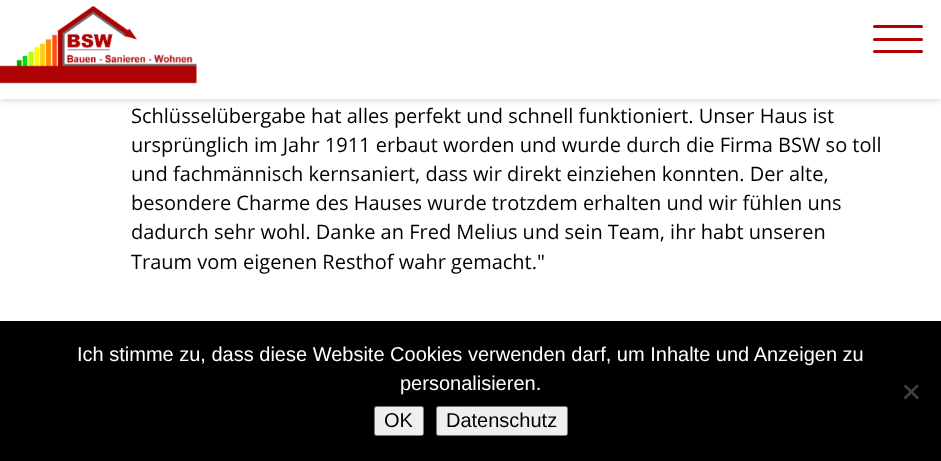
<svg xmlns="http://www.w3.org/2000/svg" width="941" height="461">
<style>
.a{font:20px Open Sans;fill:#000}
.b{font:20px Liberation Sans;fill:#fff}
.c{font:20px Liberation Sans;fill:#000}
</style>
<rect width="100%" height="100%" fill="#fff"/>
<path fill="#0000002e" filter="blur(3px)" d="M0 1h941v99H0z"/>
<path fill="#fff" d="M0 0h941v99H0z"/>
<image href="1.png" x="0" y="5" width="197" height="79"/>
<rect fill="#af0202" x="873" y="38" width="50" height="3" rx="1.5"/>
<rect fill="#af0202" x="873" y="25" width="50" height="3" rx="1.5"/>
<rect fill="#af0202" x="873" y="50" width="50" height="3" rx="1.5"/>
<path fill="#000" d="M0 321h941v140H0z"/>
<path fill="#404040" d="M917 384.5l2 1.5l-13.5 13.5l-2-2z"/>
<path fill="#404040" d="M903.5 386l2-1.5l13.5 13l-2 2z"/>
<rect fill="#efefef" stroke="#767676" x="374.5" y="406.5" width="49" height="29" rx="2"/>
<rect fill="#efefef" stroke="#767676" x="436.5" y="406.5" width="131" height="29" rx="2"/>
<text class="a" x="131" y="123">Schlüsselübergabe hat alles perfekt und schnell funktioniert. Unser Haus ist</text>
<text class="a" x="131" y="152">ursprünglich im Jahr 1911 erbaut worden und wurde durch die Firma BSW so toll</text>
<text class="a" x="131" y="181">und fachmännisch kernsaniert, dass wir direkt einziehen konnten. Der alte,</text>
<text class="a" x="131" y="210">besondere Charme des Hauses wurde trotzdem erhalten und wir fühlen uns</text>
<text class="a" x="131" y="239">dadurch sehr wohl. Danke an Fred Melius und sein Team, ihr habt unseren</text>
<text class="a" x="131" y="269">Traum vom eigenen Resthof wahr gemacht."</text>
<text class="b" x="77" y="361">Ich stimme zu, dass diese Website Cookies verwenden darf, um Inhalte und Anzeigen zu</text>
<text class="b" x="400" y="390">personalisieren.</text>
<text class="c" x="384" y="427">OK</text>
<text class="c" x="446" y="427">Datenschutz</text>
</svg>
